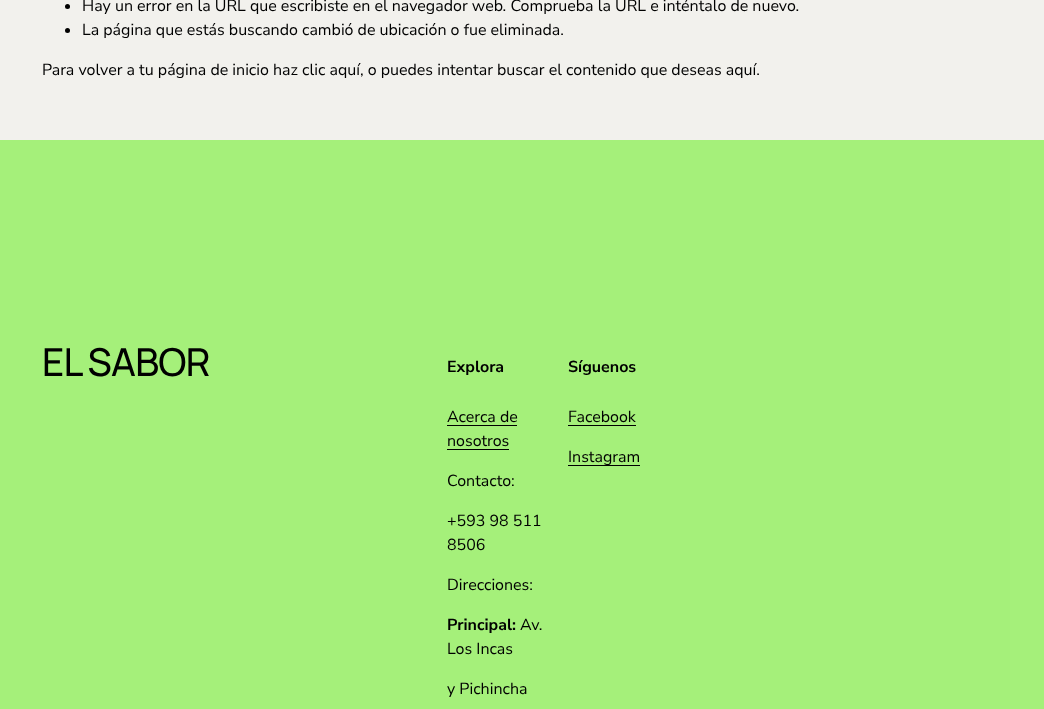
<svg xmlns="http://www.w3.org/2000/svg" width="1044" height="709">
<style>
.a{font:16px Nunito Sans;fill:#000}
.b{font:500 38.5px Manrope;letter-spacing:-0.75px;fill:#000}
.c{font:bold 16px Nunito Sans;fill:#000}
</style>
<rect width="100%" height="100%" fill="#f2f1ed"/>
<circle fill="#000" cx="67.5" cy="6.5" r="2.5"/>
<circle fill="#000" cx="67.5" cy="30.5" r="2.5"/>
<path fill="#a5f07a" d="M0 140h1044v569H0z"/>
<path fill="#000" d="M447 425h70v1H447z"/>
<path fill="#000" d="M447 449h62v1H447z"/>
<path fill="#000" d="M568 425h68v1H568z"/>
<path fill="#000" d="M568 465h72v1H568z"/>
<text class="a" x="82" y="11">Hay un error en la URL que escribiste en el navegador web. Comprueba la URL e inténtalo de nuevo.</text>
<text class="a" x="82" y="35">La página que estás buscando cambió de ubicación o fue eliminada.</text>
<text class="a" x="42" y="75">Para volver a tu página de inicio haz clic aquí, o puedes intentar buscar el contenido que deseas aquí.</text>
<text class="b" x="42" y="376">EL SABOR</text>
<text class="c" x="447" y="372">Explora</text>
<text class="c" x="568" y="372">Síguenos</text>
<text class="a" x="447" y="422">Acerca de</text>
<text class="a" x="447" y="446">nosotros</text>
<text class="a" x="447" y="486">Contacto:</text>
<text class="a" x="447" y="526">+593 98 511</text>
<text class="a" x="447" y="550">8506</text>
<text class="a" x="447" y="590">Direcciones:</text>
<text class="c" x="447" y="630">Principal:</text>
<text class="a" x="520" y="630">Av.</text>
<text class="a" x="447" y="654">Los Incas</text>
<text class="a" x="447" y="694">y Pichincha</text>
<text class="a" x="568" y="422">Facebook</text>
<text class="a" x="568" y="462">Instagram</text>
</svg>
